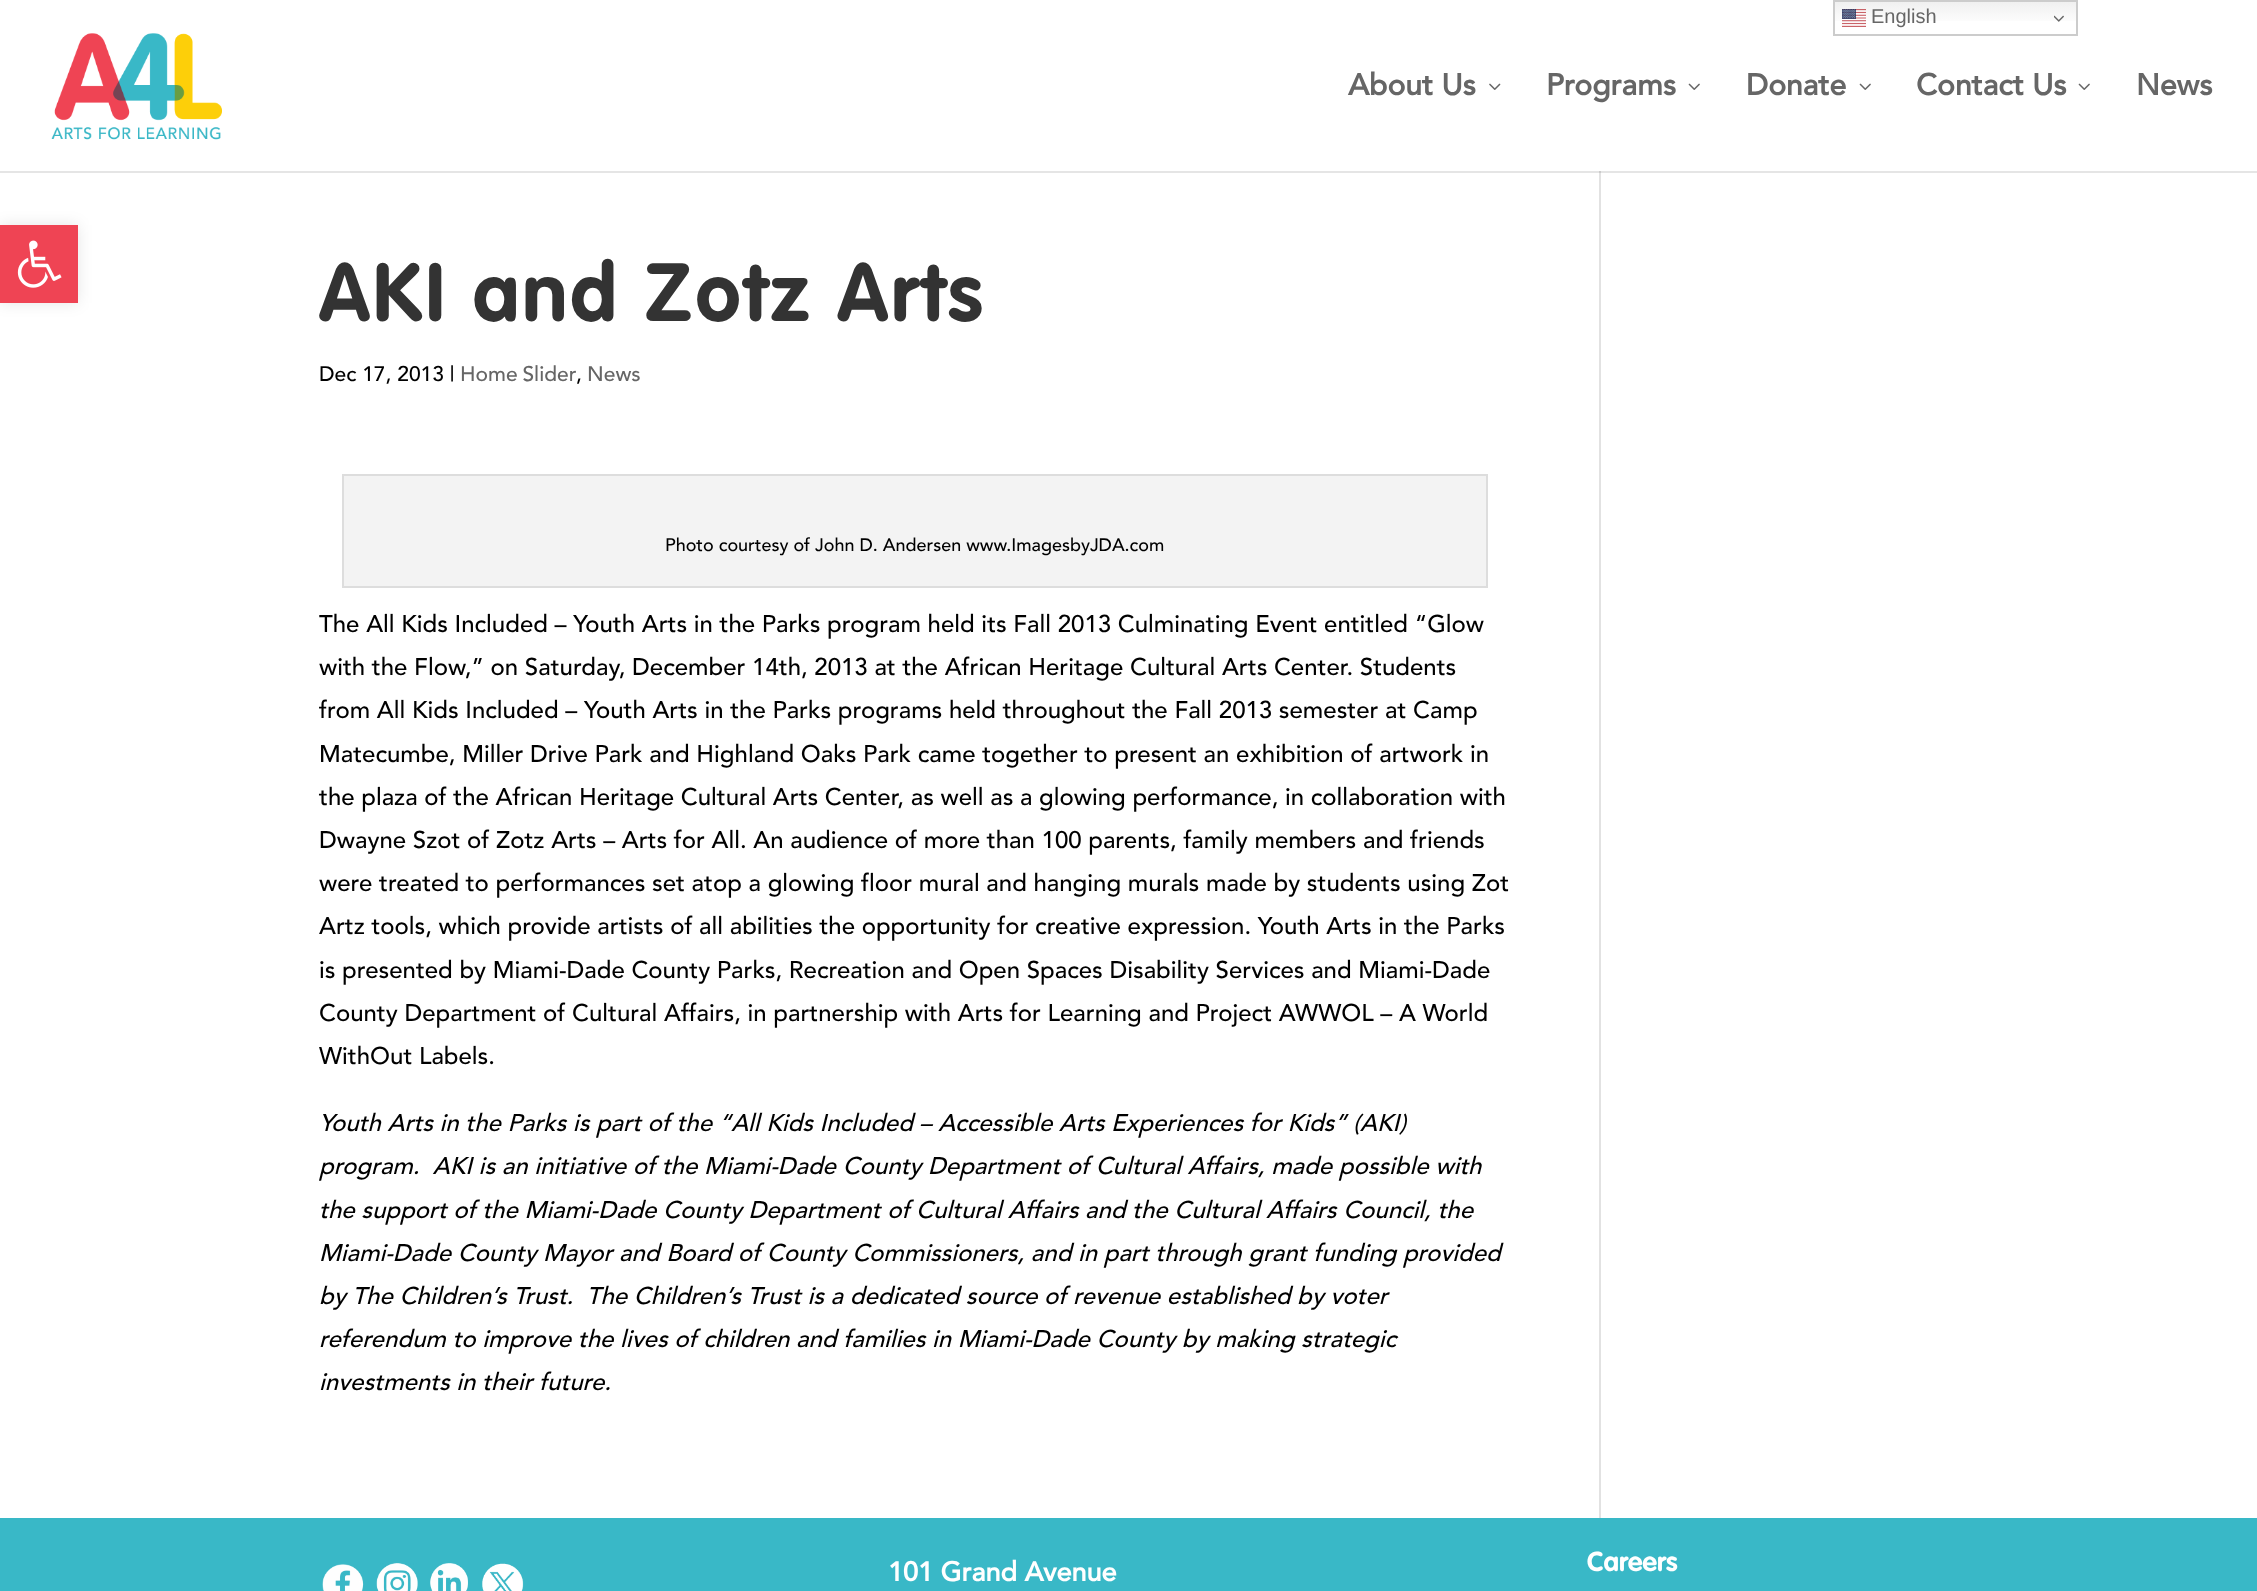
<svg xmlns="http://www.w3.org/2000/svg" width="2257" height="1591">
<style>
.a{font:20px Liberation Sans;fill:#666}
.b{font:bold 30px Avenir;fill:#666}
.c{font:bold 81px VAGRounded;letter-spacing:3px;fill:#333}
.d{font:500 21px Avenir;fill:#000}
.e{font:500 21px Avenir;fill:#666}
.f{font:500 18px Avenir;fill:#000}
.g{font:500 24px Avenir;fill:#000}
.h{font:italic 500 24px Avenir;fill:#000}
.i{font:bold 27px Avenir;fill:#fff}
.j{font:bold 27px VAGRounded;fill:#fff}
</style>
<defs>
<linearGradient id="g1" gradientUnits="userSpaceOnUse" x1="1955" y1="0" x2="1955" y2="36"><stop offset="0" stop-color="#efefef"/><stop offset="0.7" stop-color="#fff"/></linearGradient>
</defs>
<rect width="100%" height="100%" fill="#fff"/>
<path fill="url(#g1)" d="M1835 2h241v19H1835z"/>
<path fill="none" stroke="#ccc" stroke-width="2" d="M1834 1h243v34H1834z"/>
<image href="1.png" x="1842" y="9" width="24" height="18"/>
<image href="2.png" x="2054" y="15" width="10" height="7"/>
<path fill="#0000001a" filter="blur(7.5px)" d="M0 225h78v78H0z"/>
<path fill="#ef4454" d="M0 225h78v78H0z"/>
<image href="3.png" x="17" y="240" width="45" height="48"/>
<path fill="#e2e2e2" d="M1599 171h2v1347H1599z"/>
<path fill="#0000001a" d="M0 171v2h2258v-171v169z"/>
<image href="4.png" x="51" y="33" width="171" height="107"/>
<image href="5.png" x="1489" y="83" width="12" height="7"/>
<image href="6.png" x="1688" y="83" width="12" height="7"/>
<image href="6.png" x="1859" y="83" width="12" height="7"/>
<image href="6.png" x="2078" y="83" width="12" height="7"/>
<path fill="#f3f3f3" stroke="#ddd" stroke-width="2" d="M343 475h1144v112H343z"/>
<path fill="#39b8c7" d="M0 1518h2257v73H0z"/>
<image href="7.png" x="322" y="1564" width="42" height="27"/>
<image href="8.png" x="376" y="1563" width="42" height="28"/>
<image href="9.png" x="430" y="1563" width="38" height="28"/>
<image href="10.png" x="482" y="1563" width="42" height="28"/>
<text class="a" x="1871" y="23">English</text>
<text class="b" x="1348" y="95">About Us</text>
<text class="b" x="1546" y="95">Programs</text>
<text class="b" x="1746" y="95">Donate</text>
<text class="b" x="1916" y="95">Contact Us</text>
<text class="b" x="2136" y="95">News</text>
<text class="c" x="319" y="321">AKI and Zotz Arts</text>
<text class="d" x="319" y="381">Dec 17, 2013 |</text>
<text class="e" x="460" y="381" word-spacing="-1">Home Slider</text>
<text class="d" x="576" y="381">,</text>
<text class="e" x="587" y="381">News</text>
<text class="f" x="665" y="551">Photo courtesy of John D. Andersen www.ImagesbyJDA.com</text>
<text class="g" x="319" y="632">The All Kids Included – Youth Arts in the Parks program held its Fall 2013 Culminating Event entitled “Glow</text>
<text class="g" x="319" y="675">with the Flow,” on Saturday, December 14th, 2013 at the African Heritage Cultural Arts Center. Students</text>
<text class="g" x="319" y="718">from All Kids Included – Youth Arts in the Parks programs held throughout the Fall 2013 semester at Camp</text>
<text class="g" x="319" y="762">Matecumbe, Miller Drive Park and Highland Oaks Park came together to present an exhibition of artwork in</text>
<text class="g" x="319" y="805">the plaza of the African Heritage Cultural Arts Center, as well as a glowing performance, in collaboration with</text>
<text class="g" x="319" y="848">Dwayne Szot of Zotz Arts – Arts for All. An audience of more than 100 parents, family members and friends</text>
<text class="g" x="319" y="891">were treated to performances set atop a glowing floor mural and hanging murals made by students using Zot</text>
<text class="g" x="319" y="934">Artz tools, which provide artists of all abilities the opportunity for creative expression. Youth Arts in the Parks</text>
<text class="g" x="319" y="978">is presented by Miami-Dade County Parks, Recreation and Open Spaces Disability Services and Miami-Dade</text>
<text class="g" x="319" y="1021">County Department of Cultural Affairs, in partnership with Arts for Learning and Project AWWOL – A World</text>
<text class="g" x="319" y="1064">WithOut Labels.</text>
<text class="h" x="319" y="1131">Youth Arts in the Parks is part of the “All Kids Included – Accessible Arts Experiences for Kids” (AKI)</text>
<text class="h" xml:space="preserve" x="319" y="1174">program.  AKI is an initiative of the Miami-Dade County Department of Cultural Affairs, made possible with</text>
<text class="h" x="319" y="1218">the support of the Miami-Dade County Department of Cultural Affairs and the Cultural Affairs Council, the</text>
<text class="h" x="319" y="1261">Miami-Dade County Mayor and Board of County Commissioners, and in part through grant funding provided</text>
<text class="h" xml:space="preserve" x="319" y="1304">by The Children’s Trust.  The Children’s Trust is a dedicated source of revenue established by voter</text>
<text class="h" x="319" y="1347">referendum to improve the lives of children and families in Miami-Dade County by making strategic</text>
<text class="h" x="319" y="1390">investments in their future.</text>
<text class="i" x="888" y="1581">101 Grand Avenue</text>
<text class="j" x="1587" y="1571">Careers</text>
</svg>
